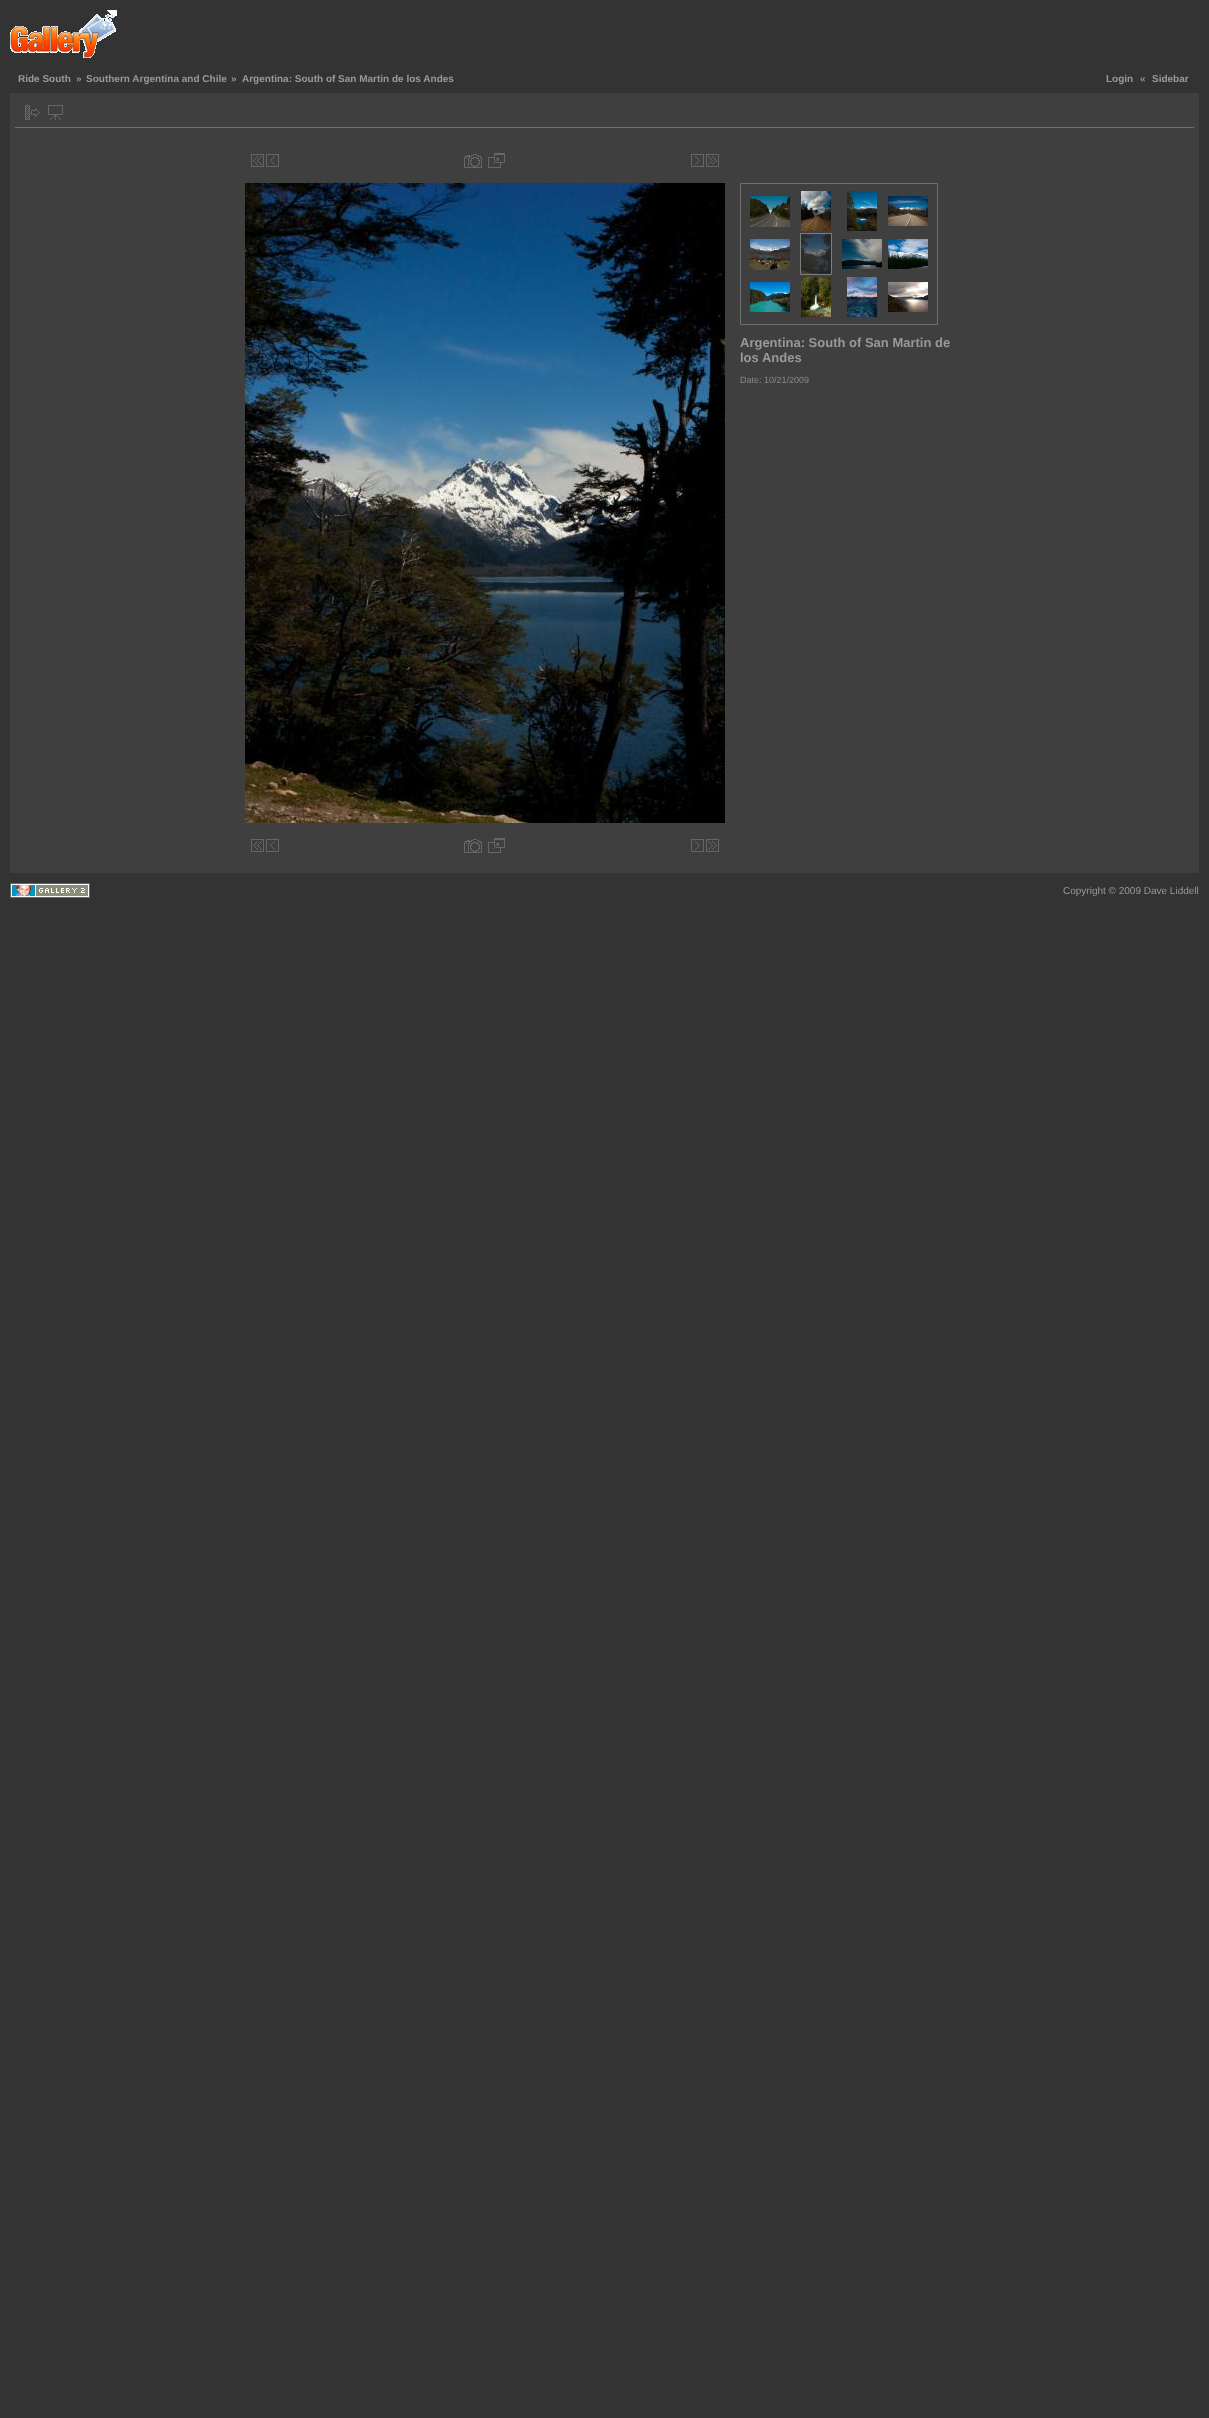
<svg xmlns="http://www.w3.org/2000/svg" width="1209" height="2418">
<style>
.a{font:bold 10px Liberation Sans;fill:#999}
.b{font:bold 13px Liberation Sans;fill:#999}
.c{font:9px Liberation Sans;fill:#888}
.d{font:10px Liberation Sans;fill:#999}
</style>
<rect width="100%" height="100%" fill="#333"/>
<image href="1.png" x="10" y="10" width="107" height="48"/>
<path fill="#3f3f3f" d="M10 93h1189v780H10z"/>
<path fill="#6f6f6f" d="M15 127h1179v1H15z"/>
<image href="2.png" x="25" y="105" width="15" height="15"/>
<image href="3.png" x="48" y="105" width="15" height="15"/>
<image href="4.png" x="251" y="154" width="13" height="13"/>
<image href="5.png" x="266" y="154" width="13" height="13"/>
<image href="6.png" x="464" y="154" width="18" height="14"/>
<image href="7.png" x="488" y="153" width="17" height="15"/>
<image href="8.png" x="691" y="154" width="13" height="13"/>
<image href="9.png" x="706" y="154" width="13" height="13"/>
<image href="10.png" x="245" y="183" width="480" height="640"/>
<path fill="none" stroke="#6f6f6f" d="M740.5 183.5h197v141H740.5z"/>
<image href="11.png" x="750" y="196" width="40" height="31"/>
<image href="12.png" x="801" y="191" width="30" height="40"/>
<image href="13.png" x="847" y="191" width="30" height="40"/>
<image href="14.png" x="888" y="196" width="40" height="30"/>
<image href="15.png" x="750" y="239" width="40" height="31"/>
<path fill="none" stroke="#7e7e7e" d="M800.5 233.5h31v41H800.5z"/>
<image href="16.png" x="801" y="234" width="30" height="40"/>
<image href="17.png" x="842" y="239" width="40" height="30"/>
<image href="18.png" x="888" y="239" width="40" height="30"/>
<image href="19.png" x="750" y="282" width="40" height="30"/>
<image href="20.png" x="801" y="277" width="30" height="40"/>
<image href="21.png" x="847" y="277" width="30" height="40"/>
<image href="22.png" x="888" y="282" width="40" height="30"/>
<image href="4.png" x="251" y="839" width="13" height="13"/>
<image href="5.png" x="266" y="839" width="13" height="13"/>
<image href="6.png" x="464" y="839" width="18" height="14"/>
<image href="7.png" x="488" y="838" width="17" height="15"/>
<image href="8.png" x="691" y="839" width="13" height="13"/>
<image href="9.png" x="706" y="839" width="13" height="13"/>
<image href="23.png" x="10" y="883" width="80" height="15"/>
<text class="a" x="18" y="82">Ride South</text>
<text class="a" x="76" y="82">»</text>
<text class="a" x="86" y="82">Southern Argentina and Chile</text>
<text class="a" x="231" y="82">»</text>
<text class="a" x="242" y="82">Argentina: South of San Martin de los Andes</text>
<text class="a" x="1106" y="82">Login</text>
<text class="a" x="1140" y="82">«</text>
<text class="a" x="1152" y="82">Sidebar</text>
<text class="b" x="740" y="347">Argentina: South of San Martin de</text>
<text class="b" x="740" y="362">los Andes</text>
<text class="c" x="740" y="383">Date: 10/21/2009</text>
<text class="d" x="1063" y="894">Copyright © 2009 Dave Liddell</text>
</svg>
